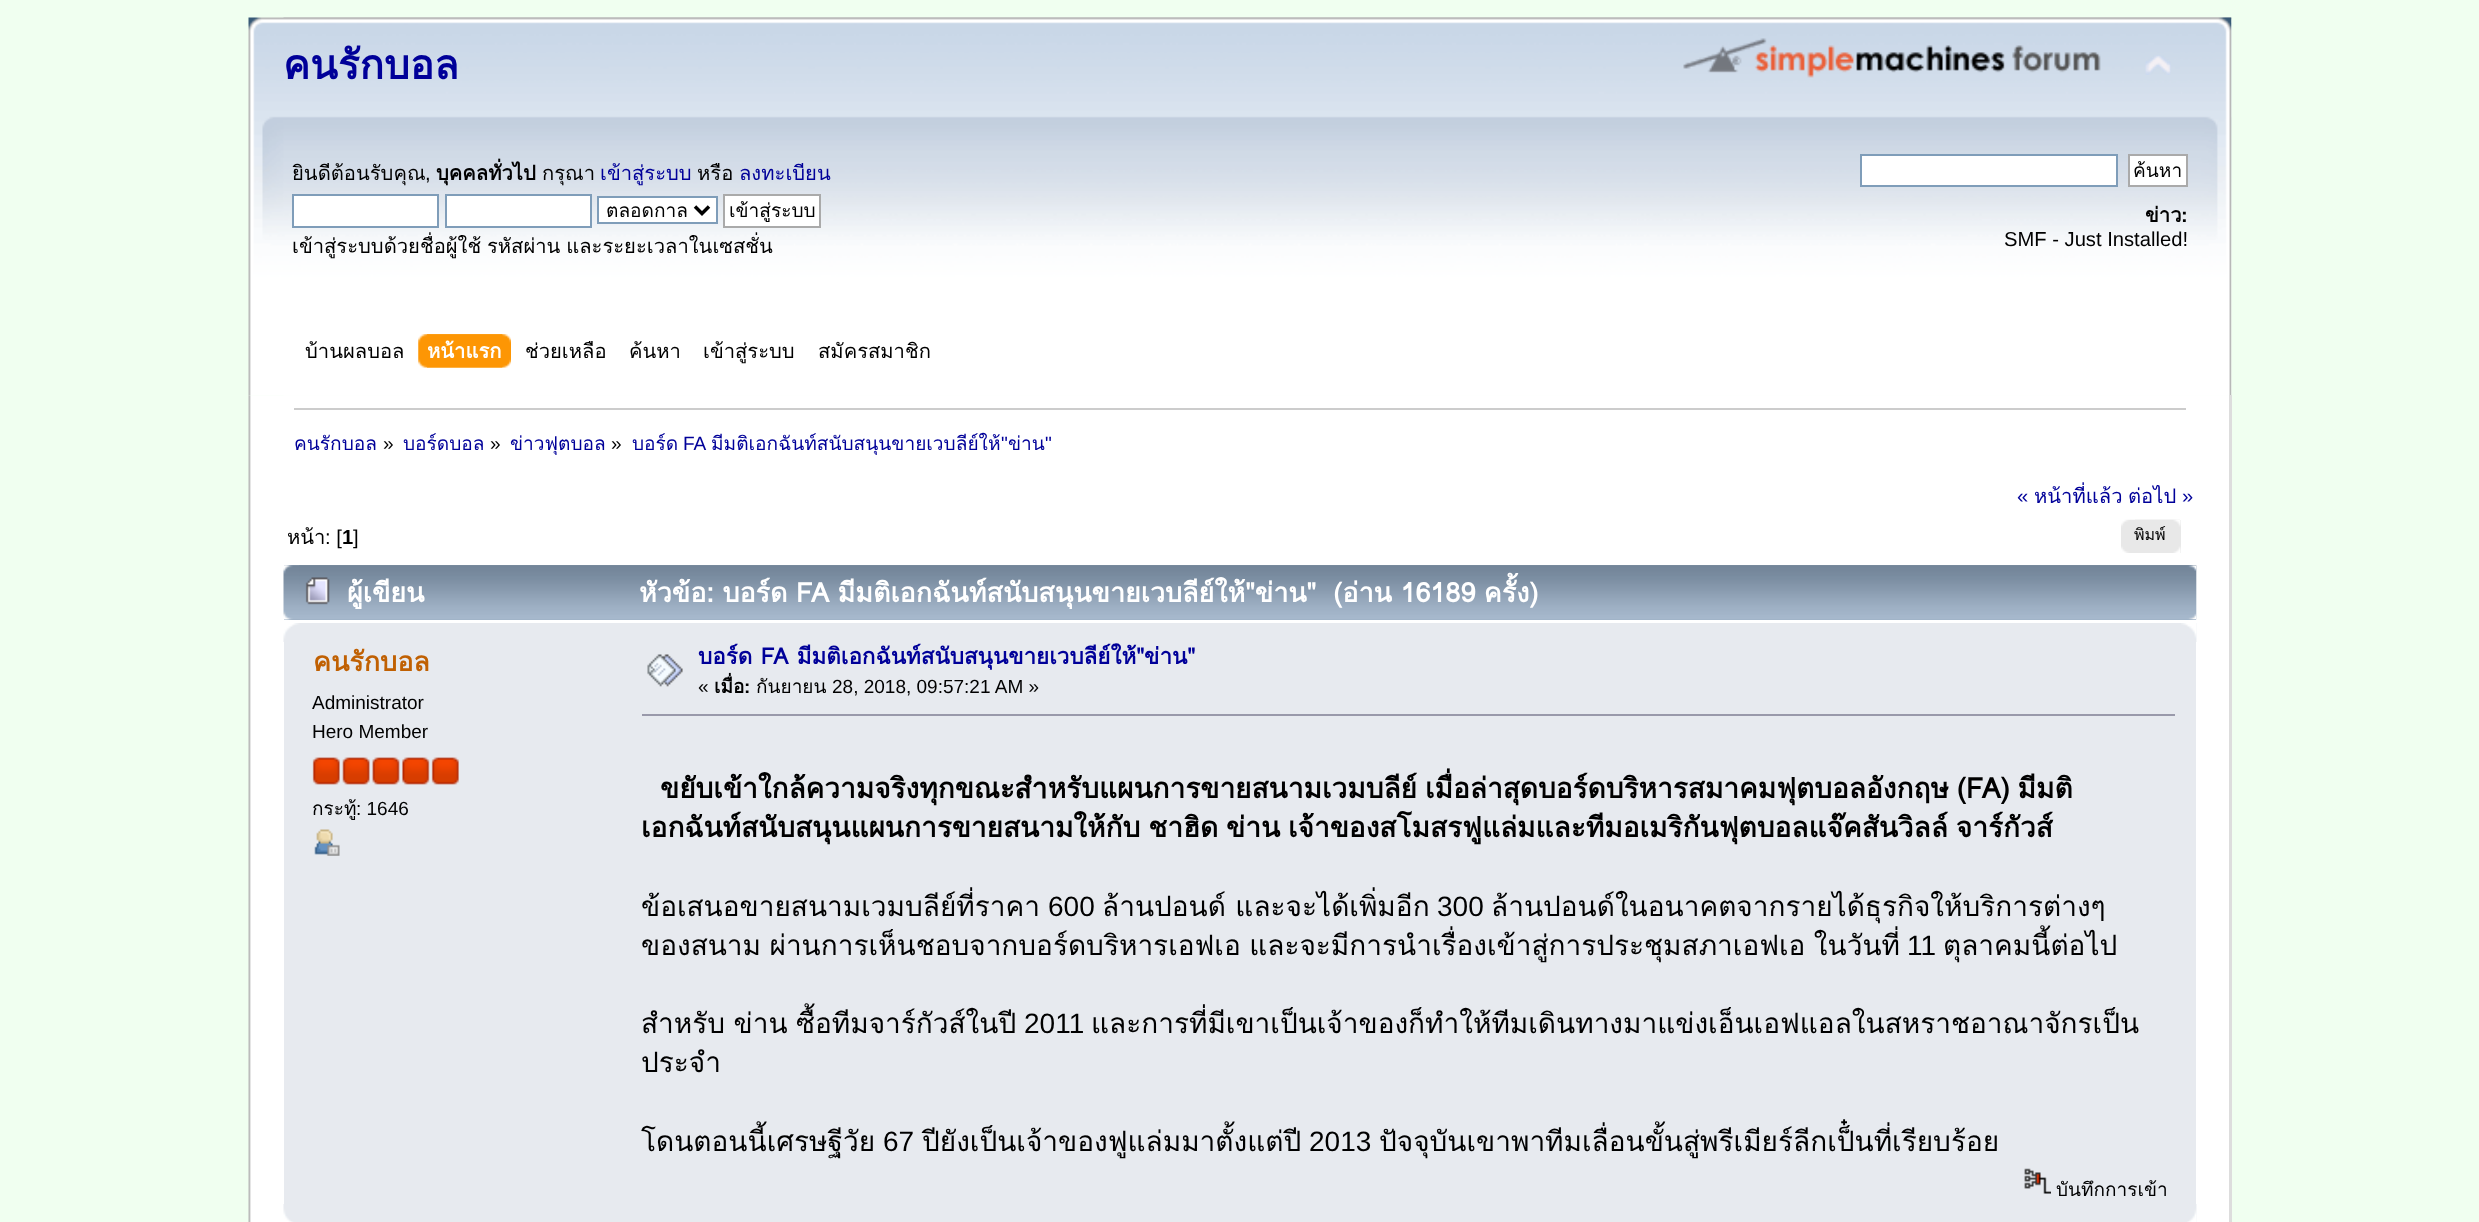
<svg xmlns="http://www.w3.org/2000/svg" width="2479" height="1222">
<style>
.a{font:bold 40.5px Loma;fill:#009}
.b{font:20.2px Loma;fill:#000}
.c{font:20.2px Liberation Sans;fill:#000}
.d{font:bold 20.2px Loma;fill:#000}
.e{font:20.2px Loma;fill:#009}
.f{font:19.1px Loma;fill:#000}
.g{font:bold 20.2px Liberation Sans;fill:#000}
.h{font:bold 20.2px Loma;fill:#fff}
.i{font:19.1px Loma;fill:#009}
.j{font:19.1px Liberation Sans;fill:#000}
.k{font:19.1px Liberation Sans;fill:#009}
.l{font:20.2px Liberation Sans;fill:#009}
.m{font:16px Loma;fill:#000}
.n{font:bold 26.9px Loma;fill:#fff}
.o{font:bold 26.9px Loma;fill:#c06002}
.p{font:19px Liberation Sans;fill:#000}
.q{font:19px Loma;fill:#000}
.r{font:bold 22.4px Loma;fill:#009}
.s{font:bold 19px Loma;fill:#000}
.t{font:bold 19px Liberation Sans;fill:#000}
.u{font:bold 28px Loma;fill:#000}
.v{font:28px Loma;fill:#000}
.w{font:28px Liberation Sans;fill:#000}
</style>
<defs>
<clipPath id="clip1"><path d="M292 154h949v114H292z"/></clipPath>
<clipPath id="clip2"><path d="M2130 156h56v30H2130z"/></clipPath>
<clipPath id="clip3"><path d="M642 712h1554v455H642z"/></clipPath>
</defs>
<rect width="100%" height="100%" fill="#f0fff0"/>
<image href="1.png" x="248" y="17" width="1984" height="379"/>
<image href="2.png" x="283" y="17" width="1949" height="379"/>
<image href="3.png" x="1683" y="38" width="418" height="40"/>
<image href="4.png" x="2145" y="55" width="26" height="20"/>
<path fill="#fff" stroke="#7f9db9" stroke-width="2" d="M293 195h145v32H293z"/>
<path fill="#fff" stroke="#7f9db9" stroke-width="2" d="M446 195h145v32H446z"/>
<path fill="#fff" stroke="#7f9db9" stroke-width="2" d="M598 197h119v26H598z"/>
<path fill="none" stroke="#000" stroke-width="3.5" d="M695 206.5l7 7l7-7"/>
<path fill="#fff" stroke="#aaa" stroke-width="2" d="M724 195h96v32H724z"/>
<path fill="#fff" stroke="#7f9db9" stroke-width="2" d="M1861 155h256v31H1861z"/>
<path fill="#fff" stroke="#aaa" stroke-width="2" d="M2129 155h58v31H2129z"/>
<image href="5.png" x="427" y="334" width="84" height="34"/>
<image href="6.png" x="418" y="334" width="85" height="34"/>
<image href="7.png" x="248" y="395" width="1981" height="827"/>
<path fill="#ddd" d="M2229 395h3v827H2229z"/>
<path fill="#ccc" d="M294 408h1892v2H294z"/>
<path fill="#e8e8e8" d="M2180 520h1v33H2180z"/>
<image href="8.png" x="2121" y="519" width="59" height="34"/>
<image href="9.png" x="2135" y="519" width="46" height="34"/>
<path fill="#99abbf" d="M284 565h1912v55H284z"/>
<image href="10.png" x="283" y="565" width="1914" height="55"/>
<image href="11.png" x="299" y="565" width="1898" height="55"/>
<image href="12.png" x="305" y="577" width="25" height="28"/>
<path fill="#e7eaef" d="M284 642h1912v562H284z"/>
<image href="13.png" x="283" y="623" width="1914" height="19"/>
<image href="14.png" x="2181" y="623" width="16" height="19"/>
<image href="15.png" x="312" y="757" width="28" height="28"/>
<image href="16.png" x="342" y="757" width="28" height="28"/>
<image href="17.png" x="372" y="757" width="28" height="28"/>
<image href="18.png" x="402" y="757" width="28" height="28"/>
<image href="19.png" x="431" y="757" width="28" height="28"/>
<image href="20.png" x="314" y="829" width="26" height="27"/>
<image href="21.png" x="647" y="654" width="36" height="33"/>
<path fill="#99a" d="M642 714h1533v2H642z"/>
<image href="22.png" x="2024" y="1168" width="27" height="26"/>
<image href="23.png" x="283" y="1204" width="1914" height="18"/>
<image href="24.png" x="2187" y="1204" width="10" height="18"/>
<text class="a" x="283" y="79">คนรักบอล</text>
<g clip-path="url(#clip1)">
<text class="b" x="292" y="180">ยินดีต้อนรับคุณ</text>
</g>
<text class="c" x="425" y="180">,</text>
<text class="d" x="436" y="180">บุคคลทั่วไป</text>
<text class="b" x="542" y="180">กรุณา</text>
<text class="e" x="600" y="180">เข้าสู่ระบบ</text>
<text class="b" x="697" y="180">หรือ</text>
<text class="e" x="739" y="180">ลงทะเบียน</text>
<text class="f" x="606" y="217">ตลอดกาล</text>
<text class="f" x="729" y="217">เข้าสู่ระบบ</text>
<g clip-path="url(#clip1)">
<text class="b" x="292" y="253" word-spacing="-1">เข้าสู่ระบบด้วยชื่อผู้ใช้ รหัสผ่าน และระยะเวลาในเซสชั่น</text>
</g>
<g clip-path="url(#clip2)">
<text class="f" x="2133" y="177">ค้นหา</text>
</g>
<text class="d" x="2145" y="222">ข่าว</text>
<text class="g" x="2181" y="222">:</text>
<text class="c" x="2004" y="246">SMF - Just Installed!</text>
<text class="b" x="305" y="358">บ้านผลบอล</text>
<text class="h" x="427" y="358">หน้าแรก</text>
<text class="b" x="525" y="358">ช่วยเหลือ</text>
<text class="b" x="629" y="358">ค้นหา</text>
<text class="b" x="703" y="358">เข้าสู่ระบบ</text>
<text class="b" x="818" y="358">สมัครสมาชิก</text>
<text class="i" x="294" y="450">คนรักบอล</text>
<text class="j" x="383" y="450">»</text>
<text class="i" x="403" y="450">บอร์ดบอล</text>
<text class="j" x="490" y="450">»</text>
<text class="i" x="510" y="450">ข่าวฟุตบอล</text>
<text class="j" x="611" y="450">»</text>
<text class="i" x="632" y="450">บอร์ด</text>
<text class="k" x="683" y="450">FA</text>
<text class="i" x="711" y="450">มีมติเอกฉันท์สนับสนุนขายเวบลีย์ให้</text>
<text class="k" x="1001" y="450">"</text>
<text class="i" x="1008" y="450">ข่าน</text>
<text class="k" x="1045" y="450">"</text>
<text class="l" x="2017" y="503">«</text>
<text class="e" x="2034" y="503">หน้าที่แล้ว</text>
<text class="e" x="2128" y="503">ต่อไป</text>
<text class="l" x="2182" y="503">»</text>
<text class="b" x="287" y="544">หน้า</text>
<text class="c" x="325" y="544">: [</text>
<text class="g" x="342" y="544">1</text>
<text class="c" x="353" y="544">]</text>
<text class="m" x="2134" y="540">พิมพ์</text>
<text class="n" x="347" y="602">ผู้เขียน</text>
<text class="n" xml:space="preserve" x="639" y="602" word-spacing="-0.5">หัวข้อ: บอร์ด FA มีมติเอกฉันท์สนับสนุนขายเวบลีย์ให้"ข่าน"  (อ่าน 16189 ครั้ง)</text>
<text class="o" x="313" y="671">คนรักบอล</text>
<text class="p" x="312" y="709">Administrator</text>
<text class="p" x="312" y="738">Hero Member</text>
<text class="q" x="312" y="815">กระทู้</text>
<text class="p" x="356" y="815">: 1646</text>
<text class="r" x="698" y="664" word-spacing="1">บอร์ด FA มีมติเอกฉันท์สนับสนุนขายเวบลีย์ให้"ข่าน"</text>
<text class="p" x="698" y="693">«</text>
<text class="s" x="714" y="693">เมื่อ</text>
<text class="t" x="744" y="693">:</text>
<text class="q" x="756" y="693">กันยายน</text>
<text class="p" x="832" y="693">28, 2018, 09:57:21 AM »</text>
<text class="u" x="660" y="798" word-spacing="-1.5">ขยับเข้าใกล้ความจริงทุกขณะสำหรับแผนการขายสนามเวมบลีย์ เมื่อล่าสุดบอร์ดบริหารสมาคมฟุตบอลอังกฤษ (FA) มีมติ</text>
<text class="u" x="641" y="837" word-spacing="-1.5">เอกฉันท์สนับสนุนแผนการขายสนามให้กับ ชาฮิด ข่าน เจ้าของสโมสรฟูแล่มและทีมอเมริกันฟุตบอลแจ๊คสันวิลล์ จาร์กัวส์</text>
<g clip-path="url(#clip3)">
<text class="v" x="641" y="916">ข้อเสนอขายสนามเวมบลีย์ที่ราคา</text>
</g>
<text class="w" x="1048" y="916">600</text>
<text class="v" x="1102" y="916">ล้านปอนด์ และจะได้เพิ่มอีก</text>
<text class="w" x="1437" y="916">300</text>
<text class="v" x="1491" y="916">ล้านปอนด์ในอนาคตจากรายได้ธุรกิจให้บริการต่างๆ</text>
<text class="v" x="641" y="955" word-spacing="-1">ของสนาม ผ่านการเห็นชอบจากบอร์ดบริหารเอฟเอ และจะมีการนำเรื่องเข้าสู่การประชุมสภาเอฟเอ ในวันที่</text>
<text class="w" x="1907" y="955">11</text>
<text class="v" x="1943" y="955">ตุลาคมนี้ต่อไป</text>
<g clip-path="url(#clip3)">
<text class="v" x="641" y="1033" word-spacing="-1">สำหรับ ข่าน ซื้อทีมจาร์กัวส์ในปี</text>
</g>
<text class="w" x="1024" y="1033">2011</text>
<text class="v" x="1091" y="1033">และการที่มีเขาเป็นเจ้าของก็ทำให้ทีมเดินทางมาแข่งเอ็นเอฟแอลในสหราชอาณาจักรเป็น</text>
<text class="v" x="641" y="1072">ประจำ</text>
<text class="v" x="641" y="1151">โดนตอนนี้เศรษฐีวัย</text>
<text class="w" x="883" y="1151">67</text>
<text class="v" x="922" y="1151">ปียังเป็นเจ้าของฟูแล่มมาตั้งแต่ปี</text>
<text class="w" x="1309" y="1151">2013</text>
<text class="v" x="1379" y="1151">ปัจจุบันเขาพาทีมเลื่อนขั้นสู่พรีเมียร์ลีกเป็๋นที่เรียบร้อย</text>
<text class="q" x="2056" y="1196">บันทึกการเข้า</text>
</svg>
